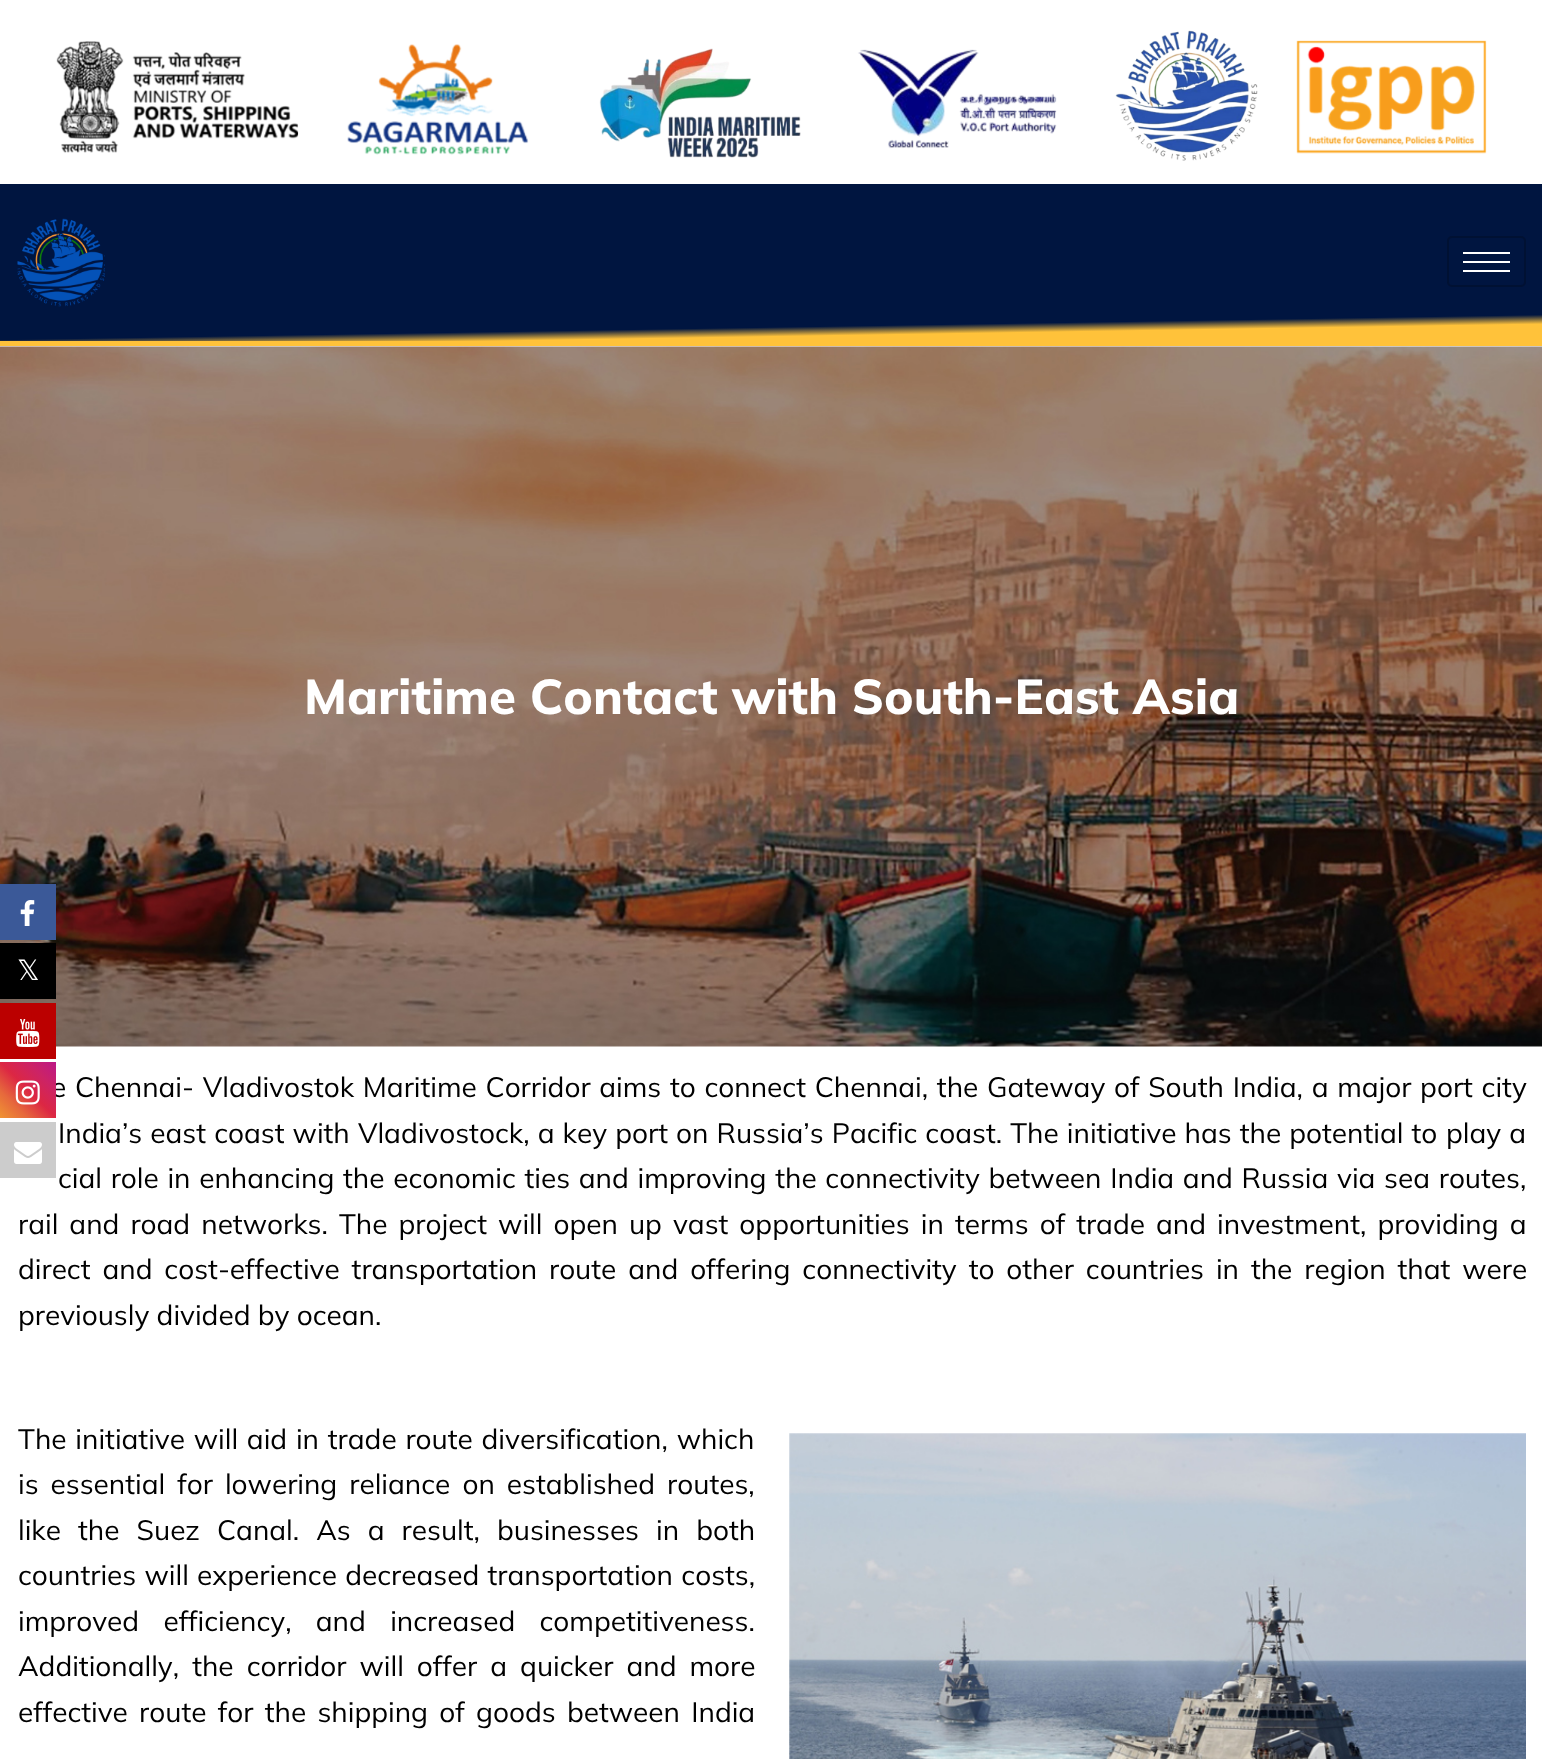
<svg xmlns="http://www.w3.org/2000/svg" width="1542" height="1759">
<style>*{font-kerning:none!important;font-variant-ligatures:none!important}</style>
<style>
.a{font:800 49px Mulish;fill:#fff}
.b{font:28px Mulish;fill:#000}
.c{font:28px DejaVu Sans;fill:#fff}
</style>
<defs>
<linearGradient id="g1" gradientUnits="userSpaceOnUse" x1="770" y1="170" x2="773" y2="355"><stop offset="0.85" stop-color="#001540"/><stop offset="0.9" stop-color="#ffc23a"/></linearGradient>
<linearGradient id="g2" gradientUnits="userSpaceOnUse" x1="0" y1="1118" x2="56" y2="1062"><stop offset="0" stop-color="#f09433"/><stop offset="0.25" stop-color="#e6683c"/><stop offset="0.5" stop-color="#dc2743"/><stop offset="0.75" stop-color="#cc2366"/><stop offset="1" stop-color="#bc1888"/></linearGradient>
</defs>
<rect width="100%" height="100%" fill="#fff"/>
<image href="1.png" x="56" y="30" width="1431" height="131"/>
<path fill="url(#g1)" d="M0 184h1542v157H0z"/>
<path fill="#ffc23a" d="M0 341h1542v5H0z"/>
<image href="2.png" x="17" y="218" width="88" height="89"/>
<rect fill="none" stroke="#013" stroke-width="2" x="1448" y="237" width="77" height="49" rx="4"/>
<path fill="#fff" d="M1463 252h47v2H1463z"/>
<path fill="#fff" d="M1463 261h47v2H1463z"/>
<path fill="#fff" d="M1463 270h47v2H1463z"/>
<image href="3.png" x="0" y="346" width="1542" height="701"/>
<image href="4.png" x="789" y="1433" width="737" height="326"/>
<path fill="#3b5998" d="M0 884h56v56H0z"/>
<image href="5.png" x="20" y="900" width="15" height="26"/>
<path fill="#000" d="M0 943h56v56H0z"/>
<path fill="#b00" d="M0 1003h56v56H0z"/>
<image href="6.png" x="16" y="1019" width="24" height="28"/>
<path fill="#ccc" d="M0 1122h56v56H0z"/>
<image href="8.png" x="14" y="1142" width="28" height="22"/>
<text class="a" x="304" y="714">Maritime Contact with South-East Asia</text>
<text class="b" x="51" y="1097" word-spacing="1.4">e Chennai- Vladivostok Maritime Corridor aims to connect Chennai, the Gateway of South India, a major port city</text>
<text class="b" x="58" y="1143" word-spacing="0.8">India’s east coast with Vladivostock, a key port on Russia’s Pacific coast. The initiative has the potential to</text>
<text class="b" x="1446" y="1143" word-spacing="0.8">play a</text>
<text class="b" x="58" y="1188" word-spacing="1.4">cial role in enhancing the economic ties and improving the connectivity between India and Russia via sea routes,</text>
<text class="b" x="18" y="1234" word-spacing="3.75">rail and road networks. The project will open up vast opportunities in terms of trade and investment, providing a</text>
<text class="b" x="18" y="1279" word-spacing="4.6">direct and cost-effective transportation route and offering connectivity to other countries in the region that were</text>
<text class="b" x="18" y="1325">previously divided by ocean.</text>
<text class="b" x="18" y="1449" word-spacing="1.5">The initiative will aid in trade route diversification, which</text>
<text class="b" x="18" y="1494" word-spacing="4.75">is essential for lowering reliance on established routes,</text>
<text class="b" x="18" y="1540" word-spacing="9.75">like the Suez Canal. As a result, businesses in both</text>
<text class="b" x="18" y="1585" word-spacing="1">countries will experience decreased transportation costs,</text>
<text class="b" x="18" y="1631" word-spacing="17">improved efficiency, and increased competitiveness.</text>
<text class="b" x="18" y="1676" word-spacing="5.75">Additionally, the corridor will offer a quicker and more</text>
<text class="b" x="18" y="1722" word-spacing="4">effective route for the shipping of goods between India</text>
<text class="c" x="17" y="980">𝕏</text>
<path fill="url(#g2)" d="M0 1062h56v56H0z"/>
<image href="7.png" x="15" y="1080" width="25" height="25"/>
</svg>
